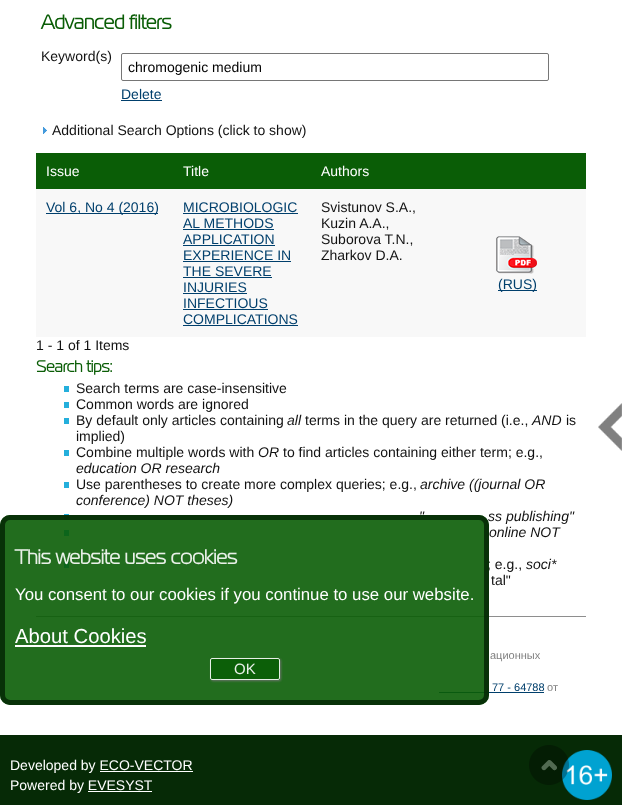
<svg xmlns="http://www.w3.org/2000/svg" width="622" height="805">
<style>
.a{font:bold 20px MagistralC;fill:#0a5d06}
.b{font:14px Liberation Sans;fill:#111}
.c{font:14px Liberation Sans;fill:#000}
.d{font:14px Liberation Sans;fill:#003f6c}
.e{font:14px Liberation Sans;fill:#fff}
.f{font:bold 16px MagistralC;fill:#0a5d06}
.g{font:italic 14px Liberation Sans;fill:#111}
.h{font:11px Liberation Sans;fill:#808080}
.i{font:11px Liberation Sans;fill:#003f6c}
.j{font:bold 20.25px MagistralC;fill:#e9f0e8}
.k{font:16.8px Liberation Sans;fill:#fff}
.l{font:20.25px Liberation Sans;fill:#fff}
.m{font:15px Liberation Sans;fill:#e9f0e8}
</style>
<defs>
<clipPath id="clip1"><path d="M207 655h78v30h-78zm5 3h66c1 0 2 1 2 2v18c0 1-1 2-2 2h-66c-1 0-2-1-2-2v-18c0-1 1-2 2-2z" clip-rule="evenodd"/></clipPath>
</defs>
<rect width="100%" height="100%" fill="#fff"/>
<rect fill="none" stroke="#767676" x="121.5" y="53.5" width="427" height="27" rx="1.5"/>
<path fill="#003f6c" d="M121 100h41v1H121z"/>
<image href="1.png" x="43" y="127" width="4" height="7"/>
<path fill="#0a5d06" d="M36 153h550v36H36z"/>
<path fill="#f8f8f8" d="M36 189h550v148H36z"/>
<path fill="#003f6c" d="M46 213h112v1H46z"/>
<path fill="#003f6c" d="M183 213h115v1H183z"/>
<path fill="#003f6c" d="M183 229h91v1H183z"/>
<path fill="#003f6c" d="M183 245h92v1H183z"/>
<path fill="#003f6c" d="M183 261h108v1H183z"/>
<path fill="#003f6c" d="M183 277h89v1H183z"/>
<path fill="#003f6c" d="M183 293h64v1H183z"/>
<path fill="#003f6c" d="M183 309h85v1H183z"/>
<path fill="#003f6c" d="M183 325h115v1H183z"/>
<image href="2.png" x="496" y="236" width="41" height="38"/>
<path fill="#003f6c" d="M498 290h39v1H498z"/>
<path fill="#24afdc" d="M64 386h5v6H64z"/>
<path fill="#24afdc" d="M64 402h5v6H64z"/>
<path fill="#24afdc" d="M64 418h5v6H64z"/>
<path fill="#24afdc" d="M64 450h5v6H64z"/>
<path fill="#24afdc" d="M64 482h5v6H64z"/>
<path fill="#24afdc" d="M64 514h5v6H64z"/>
<path fill="#24afdc" d="M64 530h5v6H64z"/>
<path fill="#24afdc" d="M64 562h5v6H64z"/>
<path fill="#8e8e8e" d="M36 616h550v1H36z"/>
<path fill="#003f6c" d="M439 692h105v1H439z"/>
<image href="3.png" x="598" y="403" width="24" height="48"/>
<path fill="#062a06" d="M0 735h622v70H0z"/>
<path fill="#fff" d="M100 771h93v1H100z"/>
<path fill="#fff" d="M88 791h64v1H88z"/>
<image href="4.png" x="562" y="750" width="50" height="50"/>
<image href="5.png" x="529" y="745" width="40" height="40"/>
<text class="a" x="41" y="29">Advanced filters</text>
<text class="b" x="41" y="61">Keyword(s)</text>
<text class="c" x="128" y="72">chromogenic medium</text>
<text class="d" x="121" y="99">Delete</text>
<text class="b" x="52" y="135">Additional Search Options (click to show)</text>
<text class="e" x="46" y="176">Issue</text>
<text class="e" x="183" y="176">Title</text>
<text class="e" x="321" y="176">Authors</text>
<text class="d" x="46" y="212">Vol 6, No 4 (2016)</text>
<text class="d" x="183" y="212">MICROBIOLOGIC</text>
<text class="d" x="183" y="228">AL METHODS</text>
<text class="d" x="183" y="244">APPLICATION</text>
<text class="d" x="183" y="260">EXPERIENCE IN</text>
<text class="d" x="183" y="276">THE SEVERE</text>
<text class="d" x="183" y="292">INJURIES</text>
<text class="d" x="183" y="308">INFECTIOUS</text>
<text class="d" x="183" y="324">COMPLICATIONS</text>
<text class="b" x="321" y="212">Svistunov S.A.,</text>
<text class="b" x="321" y="228">Kuzin A.A.,</text>
<text class="b" x="321" y="244">Suborova T.N.,</text>
<text class="b" x="321" y="260">Zharkov D.A.</text>
<text class="d" x="498" y="289">(RUS)</text>
<text class="b" x="36" y="350">1 - 1 of 1 Items</text>
<text class="f" x="36" y="372">Search tips:</text>
<text class="b" x="76" y="393">Search terms are case-insensitive</text>
<text class="b" x="76" y="409">Common words are ignored</text>
<text class="b" x="76" y="425">By default only articles containing</text>
<text class="g" x="287" y="425">all</text>
<text class="b" x="305" y="425">terms in the query are returned (i.e.,</text>
<text class="g" x="532" y="425">AND</text>
<text class="b" x="566" y="425">is</text>
<text class="b" x="76" y="441">implied)</text>
<text class="b" x="76" y="457">Combine multiple words with</text>
<text class="g" x="258" y="457">OR</text>
<text class="b" x="283" y="457">to find articles containing either term; e.g.,</text>
<text class="g" x="76" y="473">education OR research</text>
<text class="b" x="76" y="489">Use parentheses to create more complex queries; e.g.,</text>
<text class="g" x="420" y="489">archive ((journal OR</text>
<text class="g" x="76" y="505">conference) NOT theses)</text>
<text class="g" x="419" y="521">"</text>
<text class="g" x="488" y="521">ss publishing"</text>
<text class="g" x="489" y="537">online NOT</text>
<text class="b" x="487" y="569">; e.g.,</text>
<text class="g" x="526" y="569">soci*</text>
<text class="b" x="491" y="585">tal"</text>
<text class="h" x="490" y="659">ационных</text>
<text class="i" x="492" y="691">77 - 64788</text>
<text class="h" x="547" y="691">от</text>
<rect fill="#0a5d06e6" y="515" width="489" height="190" rx="10"/>
<rect fill="none" stroke="#062a06e6" stroke-width="5" x="2.5" y="517.5" width="484" height="185" rx="7.5"/>
<text class="j" x="15" y="564">This website uses cookies</text>
<text class="k" x="15" y="600">You consent to our cookies if you continue to use our website.</text>
<text class="l" x="15" y="643">About Cookies</text>
<path fill="#fff" d="M15 645h131v2H15z"/>
<g clip-path="url(#clip1)">
<rect fill="#737373e6" filter="blur(1px)" x="211" y="659" width="70" height="22" rx="2"/>
</g>
<rect fill="#0a5d06e6" x="210" y="658" width="70" height="22" rx="2"/>
<rect fill="none" stroke="#ffffffe6" x="210.5" y="658.5" width="69" height="21" rx="1.5"/>
<text class="m" x="234" y="674">OK</text>
<text class="e" x="10" y="770">Developed by ECO-VECTOR</text>
<text class="e" x="10" y="790">Powered by EVESYST</text>
</svg>
